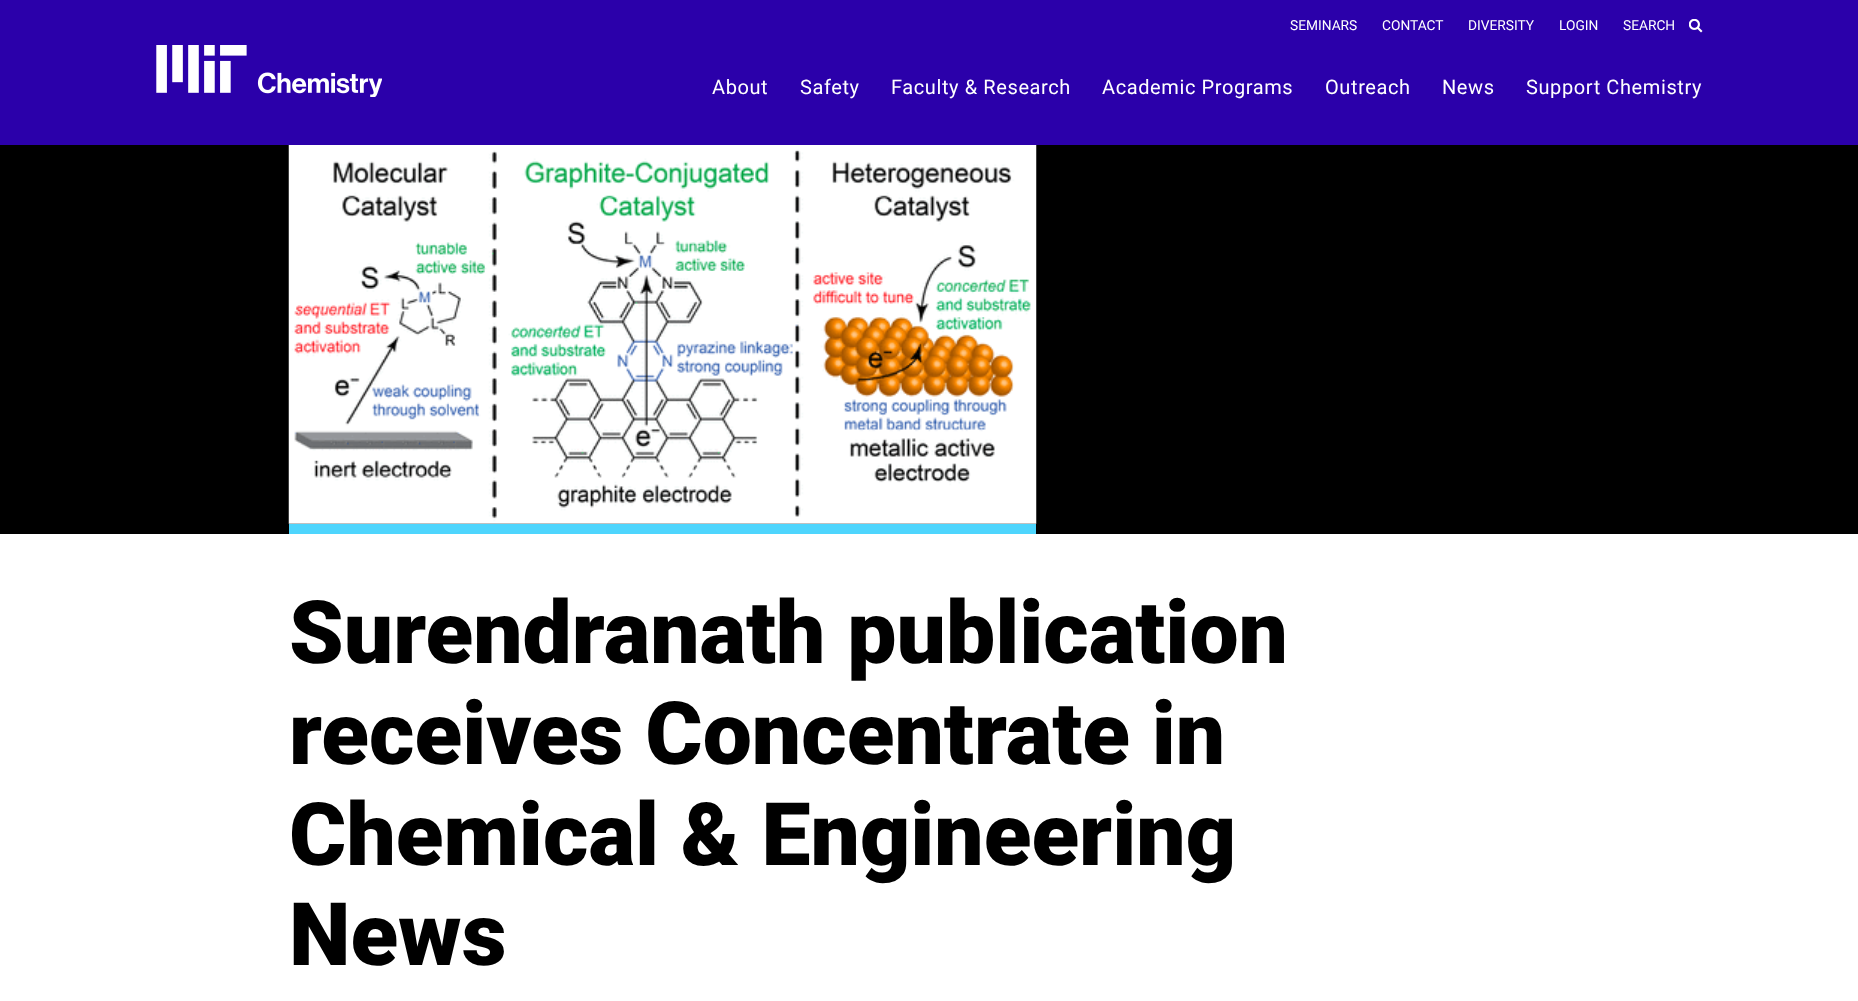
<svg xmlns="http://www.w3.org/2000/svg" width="1858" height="1001">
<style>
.a{font:13.75px Roboto;fill:#fff}
.b{font:20px Roboto;letter-spacing:0.6px;fill:#fff}
.c{font:900 87.5px Roboto;fill:#000}
</style>
<rect width="100%" height="100%" fill="#fff"/>
<path fill="#2b00aa" d="M0 0h1858v145H0z"/>
<image href="1.png" x="1689" y="19" width="14" height="14"/>
<image href="2.png" x="156" y="45" width="226" height="52"/>
<path fill="#000" d="M0 145h1858v389H0z"/>
<path fill="#4ed5fd" d="M289 524h747v10H289z"/>
<image href="3.png" x="288" y="145" width="749" height="379"/>
<text class="a" x="1290" y="30">SEMINARS</text>
<text class="a" x="1382" y="30">CONTACT</text>
<text class="a" x="1468" y="30">DIVERSITY</text>
<text class="a" x="1559" y="30">LOGIN</text>
<text class="a" x="1623" y="30">SEARCH</text>
<text class="b" x="712" y="94">About</text>
<text class="b" x="800" y="94">Safety</text>
<text class="b" x="891" y="94">Faculty &amp; Research</text>
<text class="b" x="1102" y="94">Academic Programs</text>
<text class="b" x="1325" y="94">Outreach</text>
<text class="b" x="1442" y="94">News</text>
<text class="b" x="1526" y="94">Support Chemistry</text>
<text class="c" x="289" y="663">Surendranath publication</text>
<text class="c" x="289" y="764">receives Concentrate in</text>
<text class="c" x="289" y="865">Chemical &amp; Engineering</text>
<text class="c" x="289" y="965">News</text>
</svg>
